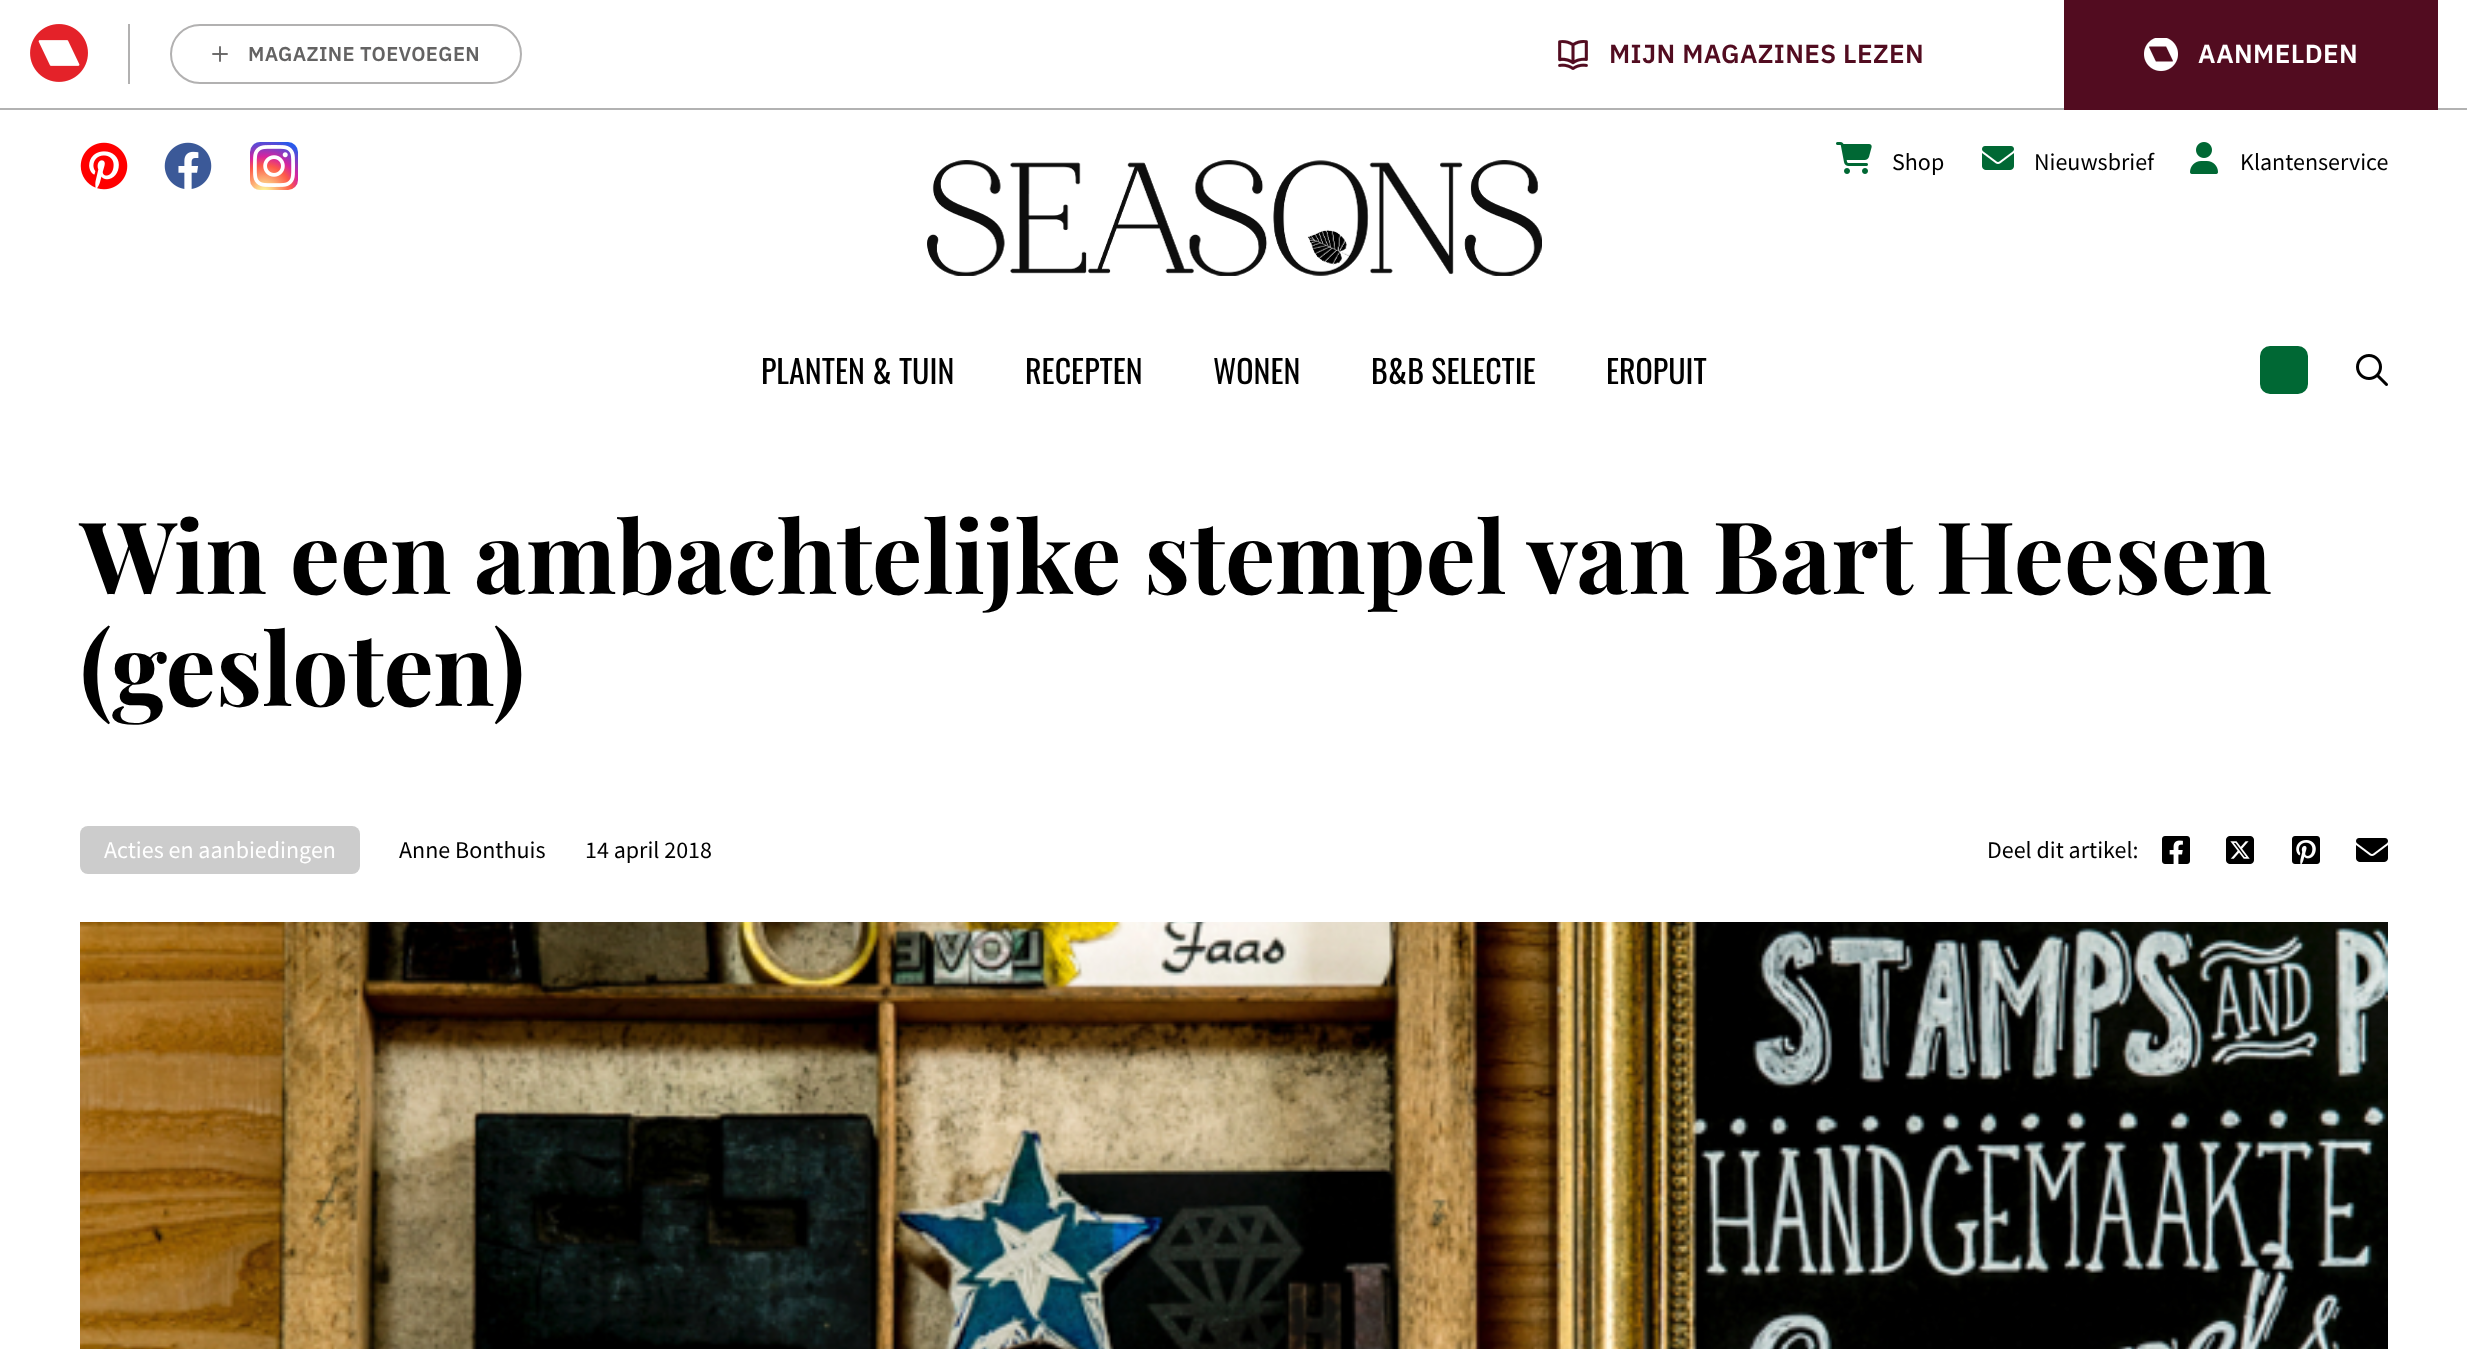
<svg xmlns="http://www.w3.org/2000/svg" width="2467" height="1349">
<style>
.a{font:600 20px IBM Plex Sans;letter-spacing:0.4px;fill:#646363}
.b{font:600 26px IBM Plex Sans;letter-spacing:0.4px;fill:#520c20}
.c{font:600 26px IBM Plex Sans;letter-spacing:0.4px;fill:#fff}
.d{font:24px Source Sans Pro;fill:#000}
.e{font:32px Oswald;fill:#000}
.f{font:bold 100px Playfair Display;fill:#000}
.g{font:24px Source Sans Pro;fill:#fff}
</style>
<defs>
<radialGradient id="g1" gradientUnits="userSpaceOnUse" cx="264" cy="193" r="61"><stop offset="0" stop-color="#fdf497"/><stop offset="0.05" stop-color="#fdf497"/><stop offset="0.45" stop-color="#fd5949"/><stop offset="0.6" stop-color="#d6249f"/><stop offset="0.9" stop-color="#285aeb"/></radialGradient>
</defs>
<rect width="100%" height="100%" fill="#fff"/>
<path fill="#b2b2b2" d="M0 108h2467v2H0z"/>
<path fill="#b2b1b1" d="M128 24h2v60H128z"/>
<image href="1.png" x="30" y="24" width="58" height="58"/>
<rect fill="none" stroke="#b2b1b1" stroke-width="2" x="171" y="25" width="350" height="58" rx="29"/>
<image href="2.png" x="212" y="46" width="16" height="16"/>
<image href="3.png" x="1558" y="40" width="30" height="30"/>
<path fill="#520c20" d="M2064 0h374v110H2064z"/>
<image href="4.png" x="2144" y="38" width="34" height="34"/>
<image href="5.png" x="80" y="142" width="48" height="48"/>
<image href="6.png" x="164" y="142" width="48" height="47"/>
<rect fill="url(#g1)" x="250" y="142" width="48" height="48" rx="10"/>
<image href="7.png" x="253" y="145" width="42" height="42"/>
<image href="8.png" x="927" y="160" width="615" height="116"/>
<image href="9.png" x="1836" y="142" width="36" height="32"/>
<image href="10.png" x="1982" y="146" width="32" height="24"/>
<image href="11.png" x="2190" y="142" width="28" height="32"/>
<rect fill="#006834" x="2260" y="346" width="48" height="48" rx="10"/>
<image href="12.png" x="2356" y="354" width="32" height="32"/>
<rect fill="#ccc" x="80" y="826" width="280" height="48" rx="8"/>
<image href="13.png" x="2162" y="836" width="28" height="28"/>
<image href="14.png" x="2226" y="836" width="28" height="28"/>
<image href="15.png" x="2292" y="836" width="28" height="28"/>
<image href="16.png" x="2356" y="838" width="32" height="24"/>
<image href="17.png" x="80" y="922" width="2308" height="427"/>
<text class="a" x="248" y="61">MAGAZINE TOEVOEGEN</text>
<text class="b" x="1609" y="63">MIJN MAGAZINES LEZEN</text>
<text class="c" x="2198" y="63">AANMELDEN</text>
<text class="d" x="1892" y="170">Shop</text>
<text class="d" x="2034" y="170">Nieuwsbrief</text>
<text class="d" x="2240" y="170">Klantenservice</text>
<text class="e" x="761" y="384">PLANTEN &amp; TUIN</text>
<text class="e" x="1025" y="384">RECEPTEN</text>
<text class="e" x="1213" y="384">WONEN</text>
<text class="e" x="1371" y="384">B&amp;B SELECTIE</text>
<text class="e" x="1606" y="384">EROPUIT</text>
<text class="f" x="80" y="594" word-spacing="-0.5">Win een ambachtelijke stempel van Bart Heesen</text>
<text class="f" x="80" y="706">(gesloten)</text>
<text class="g" x="104" y="858">Acties en aanbiedingen</text>
<text class="d" x="399" y="858">Anne Bonthuis</text>
<text class="d" x="585" y="858">14 april 2018</text>
<text class="d" x="1987" y="858">Deel dit artikel:</text>
</svg>
